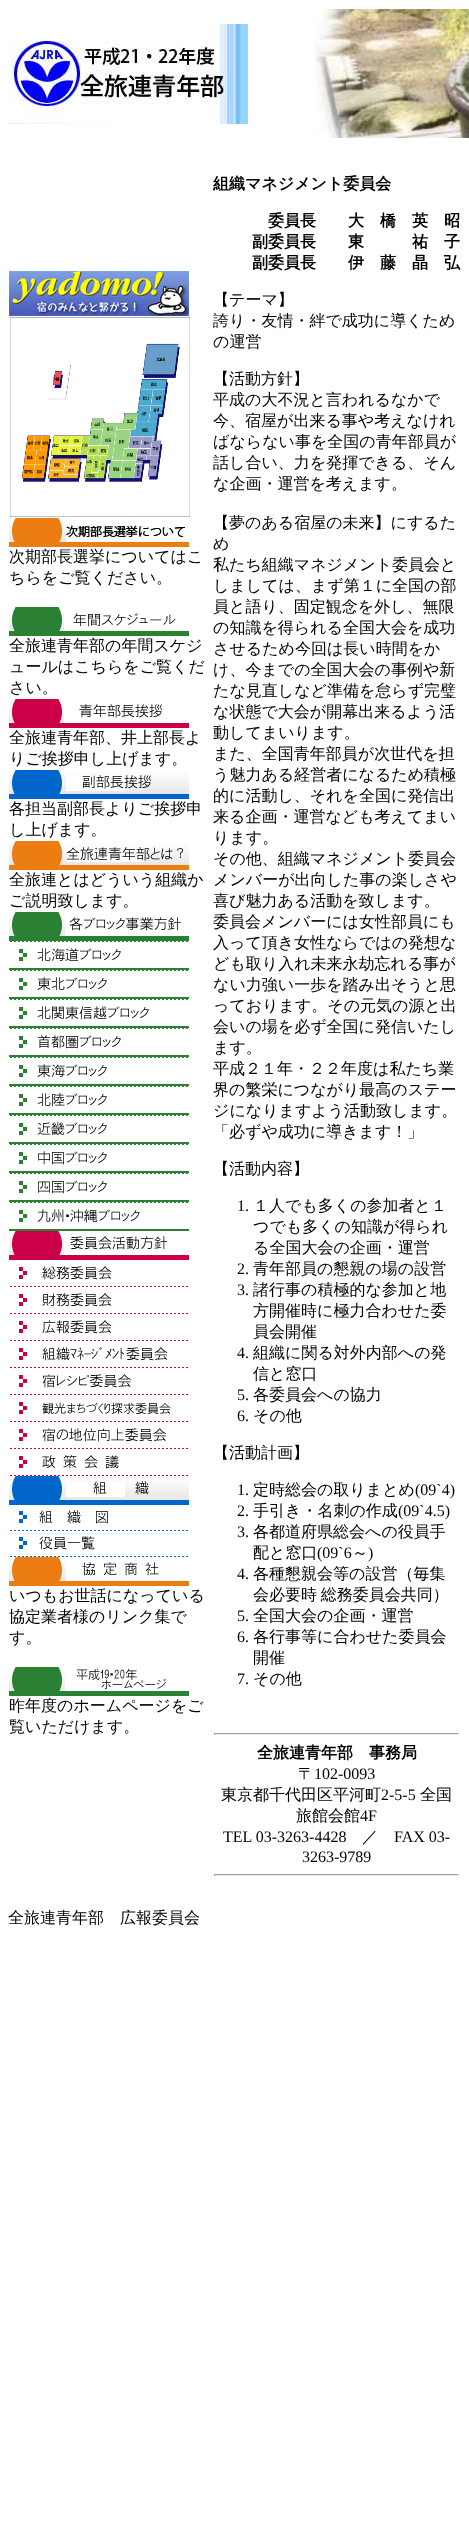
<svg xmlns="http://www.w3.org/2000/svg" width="469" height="2540">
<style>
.a{font:500 16px WenQuanYi Zen Hei;fill:#000}
.b{font:bold 16px WenQuanYi Zen Hei;fill:#000}
.c{font:16px Liberation Serif;fill:#000}
</style>
<rect width="100%" height="100%" fill="#fff"/>
<image href="1.png" x="9" y="24" width="239" height="100"/>
<image href="2.png" x="315" y="9" width="154" height="129"/>
<image href="3.png" x="9" y="271" width="180" height="45"/>
<image href="4.png" x="10" y="317" width="180" height="200"/>
<image href="5.png" x="9" y="518" width="180" height="29"/>
<image href="6.png" x="9" y="607" width="180" height="29"/>
<image href="7.png" x="9" y="699" width="180" height="29"/>
<image href="8.png" x="9" y="770" width="180" height="29"/>
<image href="9.png" x="9" y="841" width="180" height="29"/>
<image href="10.png" x="9" y="912" width="180" height="29"/>
<image href="11.png" x="9" y="941" width="180" height="29"/>
<image href="12.png" x="9" y="970" width="180" height="29"/>
<image href="13.png" x="9" y="999" width="180" height="29"/>
<image href="14.png" x="9" y="1028" width="180" height="29"/>
<image href="15.png" x="9" y="1057" width="180" height="29"/>
<image href="16.png" x="9" y="1086" width="180" height="29"/>
<image href="17.png" x="9" y="1115" width="180" height="29"/>
<image href="18.png" x="9" y="1144" width="180" height="29"/>
<image href="19.png" x="9" y="1173" width="180" height="29"/>
<image href="20.png" x="9" y="1202" width="180" height="29"/>
<image href="21.png" x="9" y="1231" width="180" height="29"/>
<image href="22.png" x="10" y="1266" width="178" height="21"/>
<image href="23.png" x="10" y="1293" width="178" height="21"/>
<image href="24.png" x="10" y="1320" width="178" height="21"/>
<image href="25.png" x="10" y="1347" width="178" height="21"/>
<image href="26.png" x="10" y="1374" width="178" height="21"/>
<image href="27.png" x="10" y="1402" width="178" height="20"/>
<image href="28.png" x="10" y="1428" width="178" height="21"/>
<image href="29.png" x="10" y="1455" width="178" height="21"/>
<image href="30.png" x="9" y="1476" width="180" height="29"/>
<image href="31.png" x="10" y="1510" width="178" height="21"/>
<image href="32.png" x="10" y="1536" width="178" height="21"/>
<image href="33.png" x="9" y="1557" width="180" height="29"/>
<image href="34.png" x="9" y="1667" width="180" height="29"/>
<path fill="#9f9f9f" d="M214 1733h245v1H214z"/>
<path fill="#eee" d="M458 1733h1v2H458z"/>
<path fill="#eee" d="M214 1734h245v1H214z"/>
<path fill="#9f9f9f" d="M214 1733h1v2H214z"/>
<path fill="#9f9f9f" d="M214 1874h245v1H214z"/>
<path fill="#eee" d="M458 1874h1v2H458z"/>
<path fill="#eee" d="M214 1875h245v1H214z"/>
<path fill="#9f9f9f" d="M214 1874h1v2H214z"/>
<text class="a" x="9" y="562">次期部長選挙についてはこ</text>
<text class="a" x="9" y="583">ちらをご覧ください。</text>
<text class="a" x="9" y="651">全旅連青年部の年間スケジ</text>
<text class="a" x="9" y="672">ュールはこちらをご覧くだ</text>
<text class="a" x="9" y="693">さい。</text>
<text class="a" x="9" y="743">全旅連青年部、井上部長よ</text>
<text class="a" x="9" y="764">りご挨拶申し上げます。</text>
<text class="a" x="9" y="814">各担当副部長よりご挨拶申</text>
<text class="a" x="9" y="835">し上げます。</text>
<text class="a" x="9" y="885">全旅連とはどういう組織か</text>
<text class="a" x="9" y="906">ご説明致します。</text>
<text class="a" x="9" y="1601">いつもお世話になっている</text>
<text class="a" x="9" y="1622">協定業者様のリンク集で</text>
<text class="a" x="9" y="1643">す。</text>
<text class="a" x="9" y="1711">昨年度のホームページをご</text>
<text class="a" x="9" y="1732">覧いただけます。</text>
<text class="b" x="213" y="189">組織マネジメント委員会</text>
<text class="b" x="268" y="226">委員長</text>
<text class="b" x="348" y="226">大　橋　英　昭</text>
<text class="b" x="252" y="247">副委員長</text>
<text class="b" x="348" y="247">東　　　祐　子</text>
<text class="b" x="252" y="268">副委員長</text>
<text class="b" x="348" y="268">伊　藤　晶　弘</text>
<text class="a" x="213" y="305">【テーマ】</text>
<text class="a" x="213" y="326">誇り・友情・絆で成功に導くため</text>
<text class="a" x="213" y="347">の運営</text>
<text class="a" x="213" y="384">【活動方針】</text>
<text class="a" x="213" y="405">平成の大不況と言われるなかで</text>
<text class="a" x="213" y="426">今、宿屋が出来る事や考えなけれ</text>
<text class="a" x="213" y="447">ばならない事を全国の青年部員が</text>
<text class="a" x="213" y="468">話し合い、力を発揮できる、そん</text>
<text class="a" x="213" y="489">な企画・運営を考えます。</text>
<text class="a" x="213" y="528">【夢のある宿屋の未来】にするた</text>
<text class="a" x="213" y="549">め</text>
<text class="a" x="213" y="570">私たち組織マネジメント委員会と</text>
<text class="a" x="213" y="591">しましては、まず第１に全国の部</text>
<text class="a" x="213" y="612">員と語り、固定観念を外し、無限</text>
<text class="a" x="213" y="633">の知識を得られる全国大会を成功</text>
<text class="a" x="213" y="654">させるため今回は長い時間をか</text>
<text class="a" x="213" y="675">け、今までの全国大会の事例や新</text>
<text class="a" x="213" y="696">たな見直しなど準備を怠らず完璧</text>
<text class="a" x="213" y="717">な状態で大会が開幕出来るよう活</text>
<text class="a" x="213" y="738">動してまいります。</text>
<text class="a" x="213" y="759">また、全国青年部員が次世代を担</text>
<text class="a" x="213" y="780">う魅力ある経営者になるため積極</text>
<text class="a" x="213" y="801">的に活動し、それを全国に発信出</text>
<text class="a" x="213" y="822">来る企画・運営なども考えてまい</text>
<text class="a" x="213" y="843">ります。</text>
<text class="a" x="213" y="864">その他、組織マネジメント委員会</text>
<text class="a" x="213" y="885">メンバーが出向した事の楽しさや</text>
<text class="a" x="213" y="906">喜び魅力ある活動を致します。</text>
<text class="a" x="213" y="927">委員会メンバーには女性部員にも</text>
<text class="a" x="213" y="948">入って頂き女性ならではの発想な</text>
<text class="a" x="213" y="969">ども取り入れ未来永劫忘れる事が</text>
<text class="a" x="213" y="990">ない力強い一歩を踏み出そうと思</text>
<text class="a" x="213" y="1011">っております。その元気の源と出</text>
<text class="a" x="213" y="1032">会いの場を必ず全国に発信いたし</text>
<text class="a" x="213" y="1053">ます。</text>
<text class="a" x="213" y="1074">平成２１年・２２年度は私たち業</text>
<text class="a" x="213" y="1095">界の繁栄につながり最高のステー</text>
<text class="a" x="213" y="1116">ジになりますよう活動致します。</text>
<text class="a" x="213" y="1137">「必ずや成功に導きます！」</text>
<text class="a" x="213" y="1174">【活動内容】</text>
<text class="c" x="237" y="1211">1.</text>
<text class="a" x="253" y="1211">１人でも多くの参加者と１</text>
<text class="a" x="253" y="1232">つでも多くの知識が得られ</text>
<text class="a" x="253" y="1253">る全国大会の企画・運営</text>
<text class="c" x="237" y="1274">2.</text>
<text class="a" x="253" y="1274">青年部員の懇親の場の設営</text>
<text class="c" x="237" y="1295">3.</text>
<text class="a" x="253" y="1295">諸行事の積極的な参加と地</text>
<text class="a" x="253" y="1316">方開催時に極力合わせた委</text>
<text class="a" x="253" y="1337">員会開催</text>
<text class="c" x="237" y="1358">4.</text>
<text class="a" x="253" y="1358">組織に関る対外内部への発</text>
<text class="a" x="253" y="1379">信と窓口</text>
<text class="c" x="237" y="1400">5.</text>
<text class="a" x="253" y="1400">各委員会への協力</text>
<text class="c" x="237" y="1421">6.</text>
<text class="a" x="253" y="1421">その他</text>
<text class="a" x="213" y="1458">【活動計画】</text>
<text class="c" x="237" y="1495">1.</text>
<text class="a" x="253" y="1495">定時総会の取りまとめ</text>
<text class="c" x="415" y="1495">(09`4)</text>
<text class="c" x="237" y="1516">2.</text>
<text class="a" x="253" y="1516">手引き・名刺の作成</text>
<text class="c" x="398" y="1516">(09`4.5)</text>
<text class="c" x="237" y="1537">3.</text>
<text class="a" x="253" y="1537">各都道府県総会への役員手</text>
<text class="a" x="253" y="1558">配と窓口</text>
<text class="c" x="317" y="1558">(09`6</text>
<text class="a" x="352" y="1558">～</text>
<text class="c" x="368" y="1558">)</text>
<text class="c" x="237" y="1579">4.</text>
<text class="a" x="253" y="1579">各種懇親会等の設営（毎集</text>
<text class="a" x="253" y="1600" word-spacing="-1">会必要時 総務委員会共同）</text>
<text class="c" x="237" y="1621">5.</text>
<text class="a" x="253" y="1621">全国大会の企画・運営</text>
<text class="c" x="237" y="1642">6.</text>
<text class="a" x="253" y="1642">各行事等に合わせた委員会</text>
<text class="a" x="253" y="1663">開催</text>
<text class="c" x="237" y="1684">7.</text>
<text class="a" x="253" y="1684">その他</text>
<text class="b" x="257" y="1758">全旅連青年部　事務局</text>
<text class="a" x="298" y="1779">〒</text>
<text class="c" x="314" y="1779">102-0093</text>
<text class="a" x="221" y="1800">東京都千代田区平河町</text>
<text class="c" x="381" y="1800">2-5-5</text>
<text class="a" x="420" y="1800">全国</text>
<text class="a" x="296" y="1821">旅館会館</text>
<text class="c" x="360" y="1821">4F</text>
<text class="c" x="223" y="1842">TEL 03-3263-4428</text>
<text class="a" x="362" y="1842">／</text>
<text class="c" x="394" y="1842">FAX 03-</text>
<text class="c" x="302" y="1862">3263-9789</text>
<text class="a" x="8" y="1923">全旅連青年部　広報委員会</text>
</svg>
